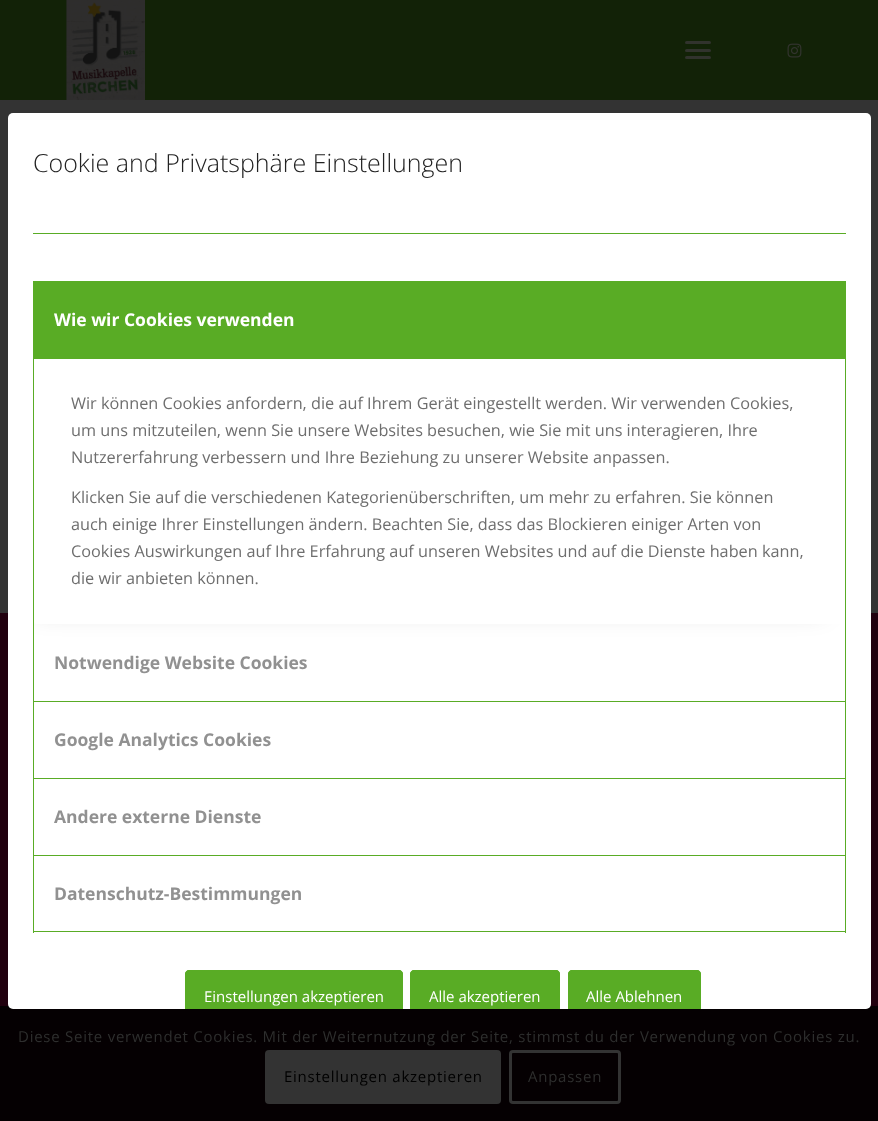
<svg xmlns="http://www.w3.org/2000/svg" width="878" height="1121">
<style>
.a{font:300 25px Open Sans;fill:#222}
.b{font:bold 17.5px Open Sans;fill:#fff}
.c{font:16.25px Open Sans;fill:#6e6e6e}
.d{font:bold 17.5px Open Sans;fill:#919191}
.e{font:15px Open Sans;fill:#fff}
.f{font:15px Open Sans;letter-spacing:0.75px;fill:#2e2e2e}
.g{font:15px Open Sans;letter-spacing:0.75px;fill:#000}
</style>
<defs>
<clipPath id="clip1"><path d="M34 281h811v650H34z"/></clipPath>
</defs>
<rect width="100%" height="100%" fill="#333"/>
<path fill="#122207" d="M0 0h878v100H0z"/>
<image href="1.png" x="66" y="0" width="79" height="100"/>
<rect fill="#31332d" x="685" y="49" width="26" height="3" rx="1.5"/>
<rect fill="#31332d" x="685" y="41" width="26" height="3" rx="1.5"/>
<rect fill="#31332d" x="685" y="56" width="26" height="3" rx="1.5"/>
<image href="2.png" x="787" y="43" width="15" height="15"/>
<path fill="#21000e" d="M0 613h878v393H0z"/>
<path fill="#050002" d="M0 1006h878v115H0z"/>
<rect fill="#fff" x="8" y="113" width="863" height="896" rx="5"/>
<path fill="#59ac25" d="M33 233h813v1H33z"/>
<path fill="#59ac25" d="M845 281h1v652H845z"/>
<path fill="#59ac25" d="M33 931h813v1H33z"/>
<path fill="#59ac25" d="M33 281h1v652H33z"/>
<g clip-path="url(#clip1)">
<path fill="#00000033" filter="blur(12.5px)" d="M36 370h787v241H36z"/>
</g>
<rect fill="#fff" x="34" y="358" width="811" height="266" rx="2.5"/>
<path fill="#59ac25" d="M34 281h811v78H34z"/>
<path fill="#59ac25" d="M34 701h811v1H34z"/>
<path fill="#59ac25" d="M34 778h811v1H34z"/>
<path fill="#59ac25" d="M34 855h811v1H34z"/>
<path fill="#59ac25" d="M189 970h210c2 0 4 2 4 4v35h-218v-35c0-2 2-4 4-4z"/>
<path fill="#59ac25" d="M189 970c-2 0-4 2-4 4v35h3v-35c0-1 0-1 1-1h210c1 0 1 0 1 1v35h3v-35c0-2-2-4-4-4z"/>
<path fill="#59ac25" d="M414 970h142c2 0 4 2 4 4v35h-150v-35c0-2 2-4 4-4z"/>
<path fill="#59ac25" d="M414 970c-2 0-4 2-4 4v35h3v-35c0-1 0-1 1-1h142c1 0 1 0 1 1v35h3v-35c0-2-2-4-4-4z"/>
<path fill="#59ac25" d="M572 970h125c2 0 4 2 4 4v35h-133v-35c0-2 2-4 4-4z"/>
<path fill="#59ac25" d="M572 970c-2 0-4 2-4 4v35h3v-35c0-1 0-1 1-1h125c1 0 1 0 1 1v35h3v-35c0-2-2-4-4-4z"/>
<rect fill="#333" x="265" y="1050" width="236" height="54" rx="4"/>
<rect fill="none" stroke="#333" stroke-width="3" x="510.5" y="1051.5" width="109" height="51" rx="2.5"/>
<text class="a" x="33" y="172">Cookie and Privatsphäre Einstellungen</text>
<text class="b" x="54" y="326">Wie wir Cookies verwenden</text>
<text class="c" x="71" y="409">Wir können Cookies anfordern, die auf Ihrem Gerät eingestellt werden. Wir verwenden Cookies,</text>
<text class="c" x="71" y="436">um uns mitzuteilen, wenn Sie unsere Websites besuchen, wie Sie mit uns interagieren, Ihre</text>
<text class="c" x="71" y="463">Nutzererfahrung verbessern und Ihre Beziehung zu unserer Website anpassen.</text>
<text class="c" x="71" y="503">Klicken Sie auf die verschiedenen Kategorienüberschriften, um mehr zu erfahren. Sie können</text>
<text class="c" x="71" y="530">auch einige Ihrer Einstellungen ändern. Beachten Sie, dass das Blockieren einiger Arten von</text>
<text class="c" x="71" y="557">Cookies Auswirkungen auf Ihre Erfahrung auf unseren Websites und auf die Dienste haben kann,</text>
<text class="c" x="71" y="584">die wir anbieten können.</text>
<text class="d" x="54" y="669">Notwendige Website Cookies</text>
<text class="d" x="54" y="746">Google Analytics Cookies</text>
<text class="d" x="54" y="823">Andere externe Dienste</text>
<text class="d" x="54" y="900">Datenschutz-Bestimmungen</text>
<text class="e" x="204" y="1002">Einstellungen akzeptieren</text>
<text class="e" x="429" y="1002">Alle akzeptieren</text>
<text class="e" x="586" y="1002">Alle Ablehnen</text>
<text class="f" x="18" y="1042">Diese Seite verwendet Cookies. Mit der Weiternutzung der Seite, stimmst du der Verwendung von Cookies zu.</text>
<text class="g" x="284" y="1082">Einstellungen akzeptieren</text>
<text class="f" x="528" y="1082">Anpassen</text>
</svg>
